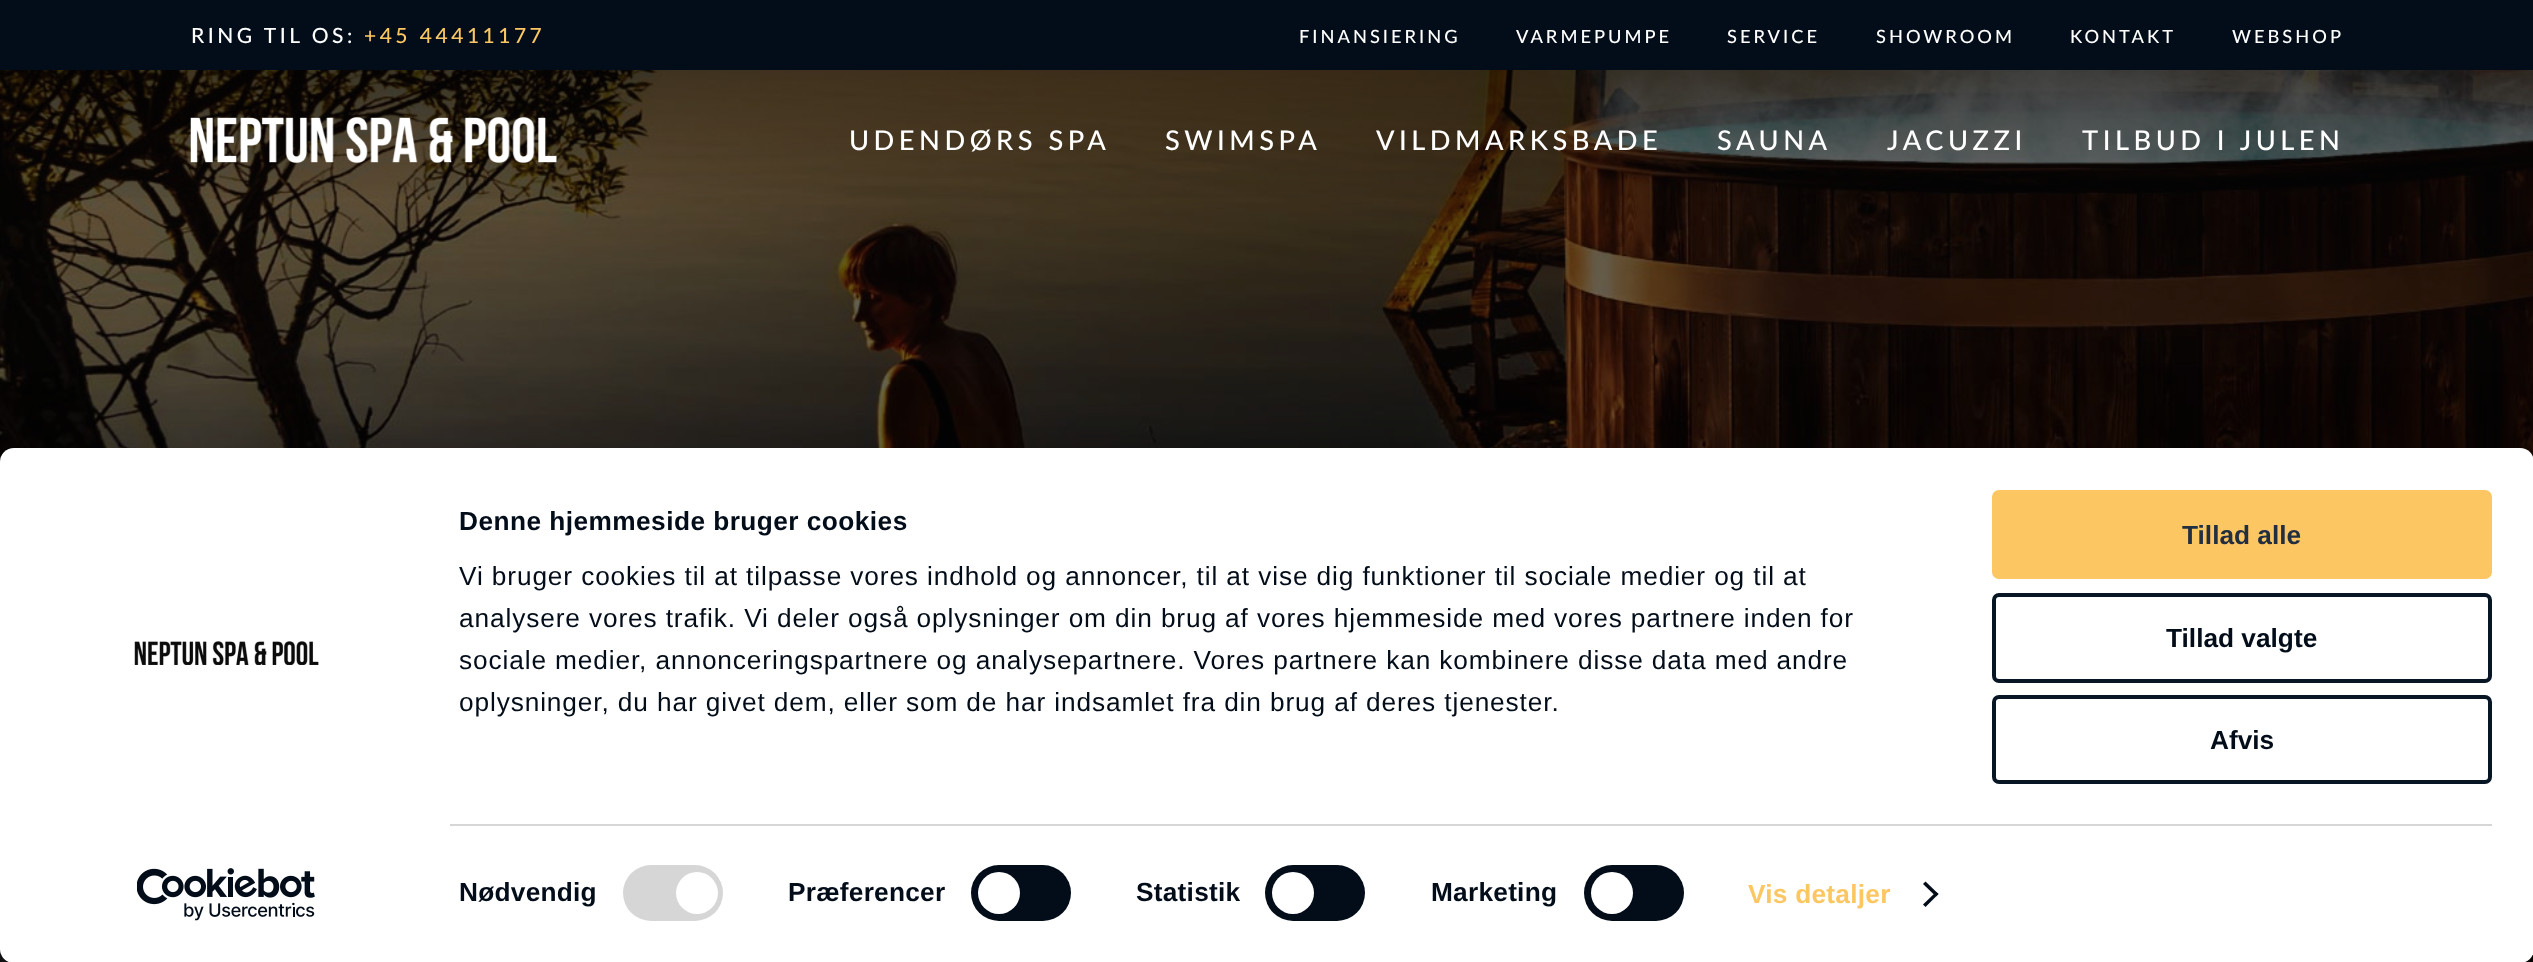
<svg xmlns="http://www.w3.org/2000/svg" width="2533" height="962">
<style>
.a{font:500 21px Lato;letter-spacing:3.5px;fill:#fff}
.b{font:500 21px Lato;letter-spacing:3.5px;fill:#fcc762}
.c{font:500 18.25px Lato;letter-spacing:3px;fill:#fff}
.d{font:500 27.25px Lato;letter-spacing:4.5px;fill:#fff}
.e{font:bold 26.25px Liberation Sans;letter-spacing:0.45px;fill:#030d19}
.f{font:26.25px Liberation Sans;letter-spacing:0.88px;fill:#030d19}
.g{font:bold 26.25px Liberation Sans;letter-spacing:0.25px;fill:#030d19}
.h{font:bold 26.25px Liberation Sans;letter-spacing:0.25px;fill:#fcc762}
.i{font:bold 26.25px Liberation Sans;fill:#212f40}
.j{font:bold 26.25px Liberation Sans;fill:#030d19}
</style>
<defs>
<linearGradient id="g1" gradientUnits="userSpaceOnUse" x1="1267" y1="0" x2="1267" y2="210"><stop offset="0" stop-color="#000" stop-opacity="0.5"/><stop offset="1" stop-color="#000" stop-opacity="0"/></linearGradient>
</defs>
<rect width="100%" height="100%" fill="#fff"/>
<path fill="#030d19" d="M0 0h2533v70H0z"/>
<image href="2.png" x="0" y="70" width="2533" height="892"/>
<path fill="url(#g1)" d="M0 70h2533v129H0z"/>
<image href="1.png" x="190" y="117" width="367" height="46"/>
<rect fill="#0000004d" filter="blur(61px)" y="501" width="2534" height="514" rx="14"/>
<rect fill="#fff" y="448" width="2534" height="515" rx="14"/>
<image href="3.png" x="134" y="641" width="185" height="24"/>
<image href="4.png" x="137" y="868" width="178" height="53"/>
<path fill="#d6d6d6" d="M450 824h2042v2H450z"/>
<rect fill="#d6d6d6" x="623" y="865" width="100" height="56" rx="28"/>
<circle fill="#fff" cx="697" cy="893" r="21"/>
<rect fill="#030d19" x="971" y="865" width="100" height="56" rx="28"/>
<circle fill="#fff" cx="999" cy="893" r="21"/>
<rect fill="#030d19" x="1265" y="865" width="100" height="56" rx="28"/>
<circle fill="#fff" cx="1293" cy="893" r="21"/>
<rect fill="#030d19" x="1584" y="865" width="100" height="56" rx="28"/>
<circle fill="#fff" cx="1612" cy="893" r="21"/>
<path fill="#030d19" d="M1925.5 881.5l13 12.5l-2.5 2.5l-13-12.5z"/>
<path fill="#030d19" d="M1936 892l2.5 2l-13 13l-2.5-2.5z"/>
<rect fill="#fcc762" stroke="#fcc762" stroke-width="4" x="1994" y="492" width="496" height="85" rx="5"/>
<rect fill="none" stroke="#071524" stroke-width="4" x="1994" y="595" width="496" height="86" rx="5"/>
<rect fill="none" stroke="#071524" stroke-width="4" x="1994" y="697" width="496" height="85" rx="5"/>
<text class="a" x="191" y="43">RING TIL OS:</text>
<text class="b" x="364" y="43">+45 44411177</text>
<text class="c" x="1299" y="43">FINANSIERING</text>
<text class="c" x="1516" y="43">VARMEPUMPE</text>
<text class="c" x="1727" y="43">SERVICE</text>
<text class="c" x="1876" y="43">SHOWROOM</text>
<text class="c" x="2070" y="43">KONTAKT</text>
<text class="c" x="2232" y="43">WEBSHOP</text>
<text class="d" x="849" y="150">UDENDØRS SPA</text>
<text class="d" x="1165" y="150">SWIMSPA</text>
<text class="d" x="1376" y="150">VILDMARKSBADE</text>
<text class="d" x="1717" y="150">SAUNA</text>
<text class="d" x="1887" y="150">JACUZZI</text>
<text class="d" x="2082" y="150">TILBUD I JULEN</text>
<text class="e" x="459" y="530">Denne hjemmeside bruger cookies</text>
<text class="f" x="459" y="585">Vi bruger cookies til at tilpasse vores indhold og annoncer, til at vise dig funktioner til sociale medier og til at</text>
<text class="f" x="459" y="627">analysere vores trafik. Vi deler også oplysninger om din brug af vores hjemmeside med vores partnere inden for</text>
<text class="f" x="459" y="669">sociale medier, annonceringspartnere og analysepartnere. Vores partnere kan kombinere disse data med andre</text>
<text class="f" x="459" y="711">oplysninger, du har givet dem, eller som de har indsamlet fra din brug af deres tjenester.</text>
<text class="g" x="459" y="901">Nødvendig</text>
<text class="g" x="788" y="901">Præferencer</text>
<text class="g" x="1136" y="901">Statistik</text>
<text class="g" x="1431" y="901">Marketing</text>
<text class="h" x="1748" y="903">Vis detaljer</text>
<text class="i" x="2182" y="544">Tillad alle</text>
<text class="j" x="2166" y="647">Tillad valgte</text>
<text class="j" x="2210" y="749">Afvis</text>
</svg>
